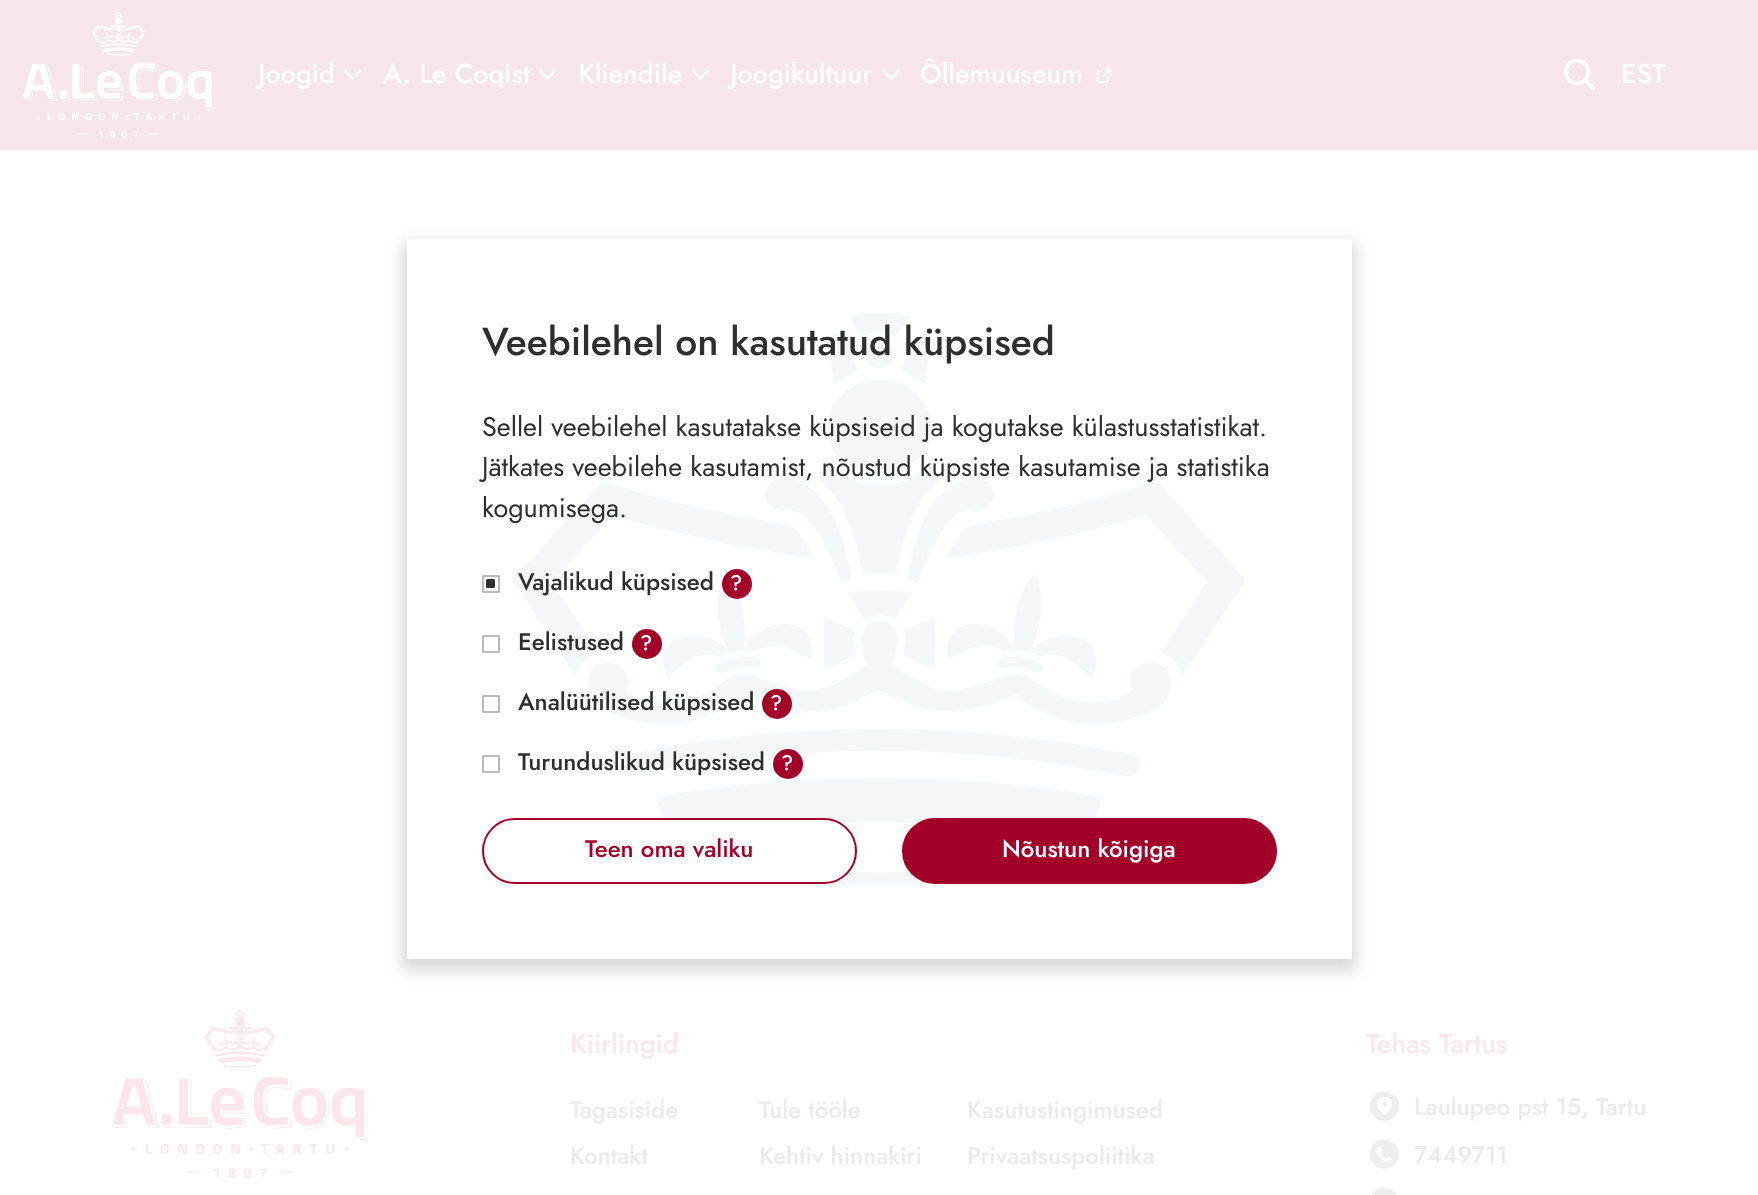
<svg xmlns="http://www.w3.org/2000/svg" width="1758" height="1195">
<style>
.a{font:500 27px Jost;fill:#fff}
.b{font:500 27px Jost;fill:#fce6eb}
.c{font:500 24px Jost;fill:#eaeaea}
.d{font:500 39px Jost;fill:#2d2e2e}
.e{font:27px Jost;fill:#2d2e2e}
.f{font:500 24px Jost;fill:#2d2e2e}
.g{font:500 21px Jost;fill:#fff}
.h{font:500 24px Jost;fill:#a30029}
.i{font:500 24px Jost;fill:#fff}
</style>
<rect width="100%" height="100%" fill="#fff"/>
<path fill="#f6e6ea" d="M0 0h1758v150H0z"/>
<image href="1.png" x="23" y="12" width="192" height="126"/>
<path fill="#fefefe" d="M361.5 71l-9 9l-9-9l2-1.5l7 7.5l7-7.5z"/>
<path fill="#fefefe" d="M556.5 71l-9 9l-9-9l2-1.5l7 7.5l7-7.5z"/>
<path fill="#fefefe" d="M709.5 71l-9 9l-9-9l2-1.5l7 7.5l7-7.5z"/>
<path fill="#fefefe" d="M900 71l-9 9l-9-9l2-1.5l7 7.5l7-7.5z"/>
<image href="2.png" x="1096" y="67" width="16" height="16"/>
<image href="3.png" x="1563" y="58" width="33" height="33"/>
<image href="8.png" x="0" y="1139" width="1516" height="56"/>
<image href="4.png" x="113" y="1010" width="255" height="168"/>
<image href="5.png" x="1369" y="1091" width="31" height="30"/>
<image href="6.png" x="1369" y="1139" width="31" height="30"/>
<image href="7.png" x="1371" y="1187" width="26" height="8"/>
<path fill="#00000026" filter="blur(7.5px)" d="M402 242h954v729H402z"/>
<path fill="#fff" d="M407 239h945v720H407z"/>
<image href="9.png" x="513" y="313" width="733" height="571"/>
<rect fill="none" stroke="#bbb" stroke-width="2" x="483" y="576" width="16" height="16" rx="0.5"/>
<rect fill="#2d2e2e" x="486" y="579" width="9" height="9" rx="1.5"/>
<circle fill="#a30029" cx="737" cy="584" r="15"/>
<rect fill="none" stroke="#bbb" stroke-width="2" x="483" y="636" width="16" height="16" rx="0.5"/>
<circle fill="#a30029" cx="647" cy="644" r="15"/>
<rect fill="none" stroke="#bbb" stroke-width="2" x="483" y="696" width="16" height="16" rx="0.5"/>
<circle fill="#a30029" cx="777" cy="704" r="15"/>
<rect fill="none" stroke="#bbb" stroke-width="2" x="483" y="756" width="16" height="16" rx="0.5"/>
<circle fill="#a30029" cx="788" cy="764" r="15"/>
<rect fill="#fff" stroke="#a30029" stroke-width="2" x="483" y="819" width="373" height="64" rx="32"/>
<rect fill="#a30029" stroke="#a30029" stroke-width="2" x="903" y="819" width="373" height="64" rx="32"/>
<text class="a" x="258" y="83">Joogid</text>
<text class="a" x="383" y="83">A. Le Coqist</text>
<text class="a" x="578" y="83">Kliendile</text>
<text class="a" x="730" y="83">Joogikultuur</text>
<text class="a" x="920" y="83">Õllemuuseum</text>
<text class="a" x="1621" y="83">EST</text>
<text class="b" x="570" y="1053">Kiirlingid</text>
<text class="c" x="570" y="1118">Tagasiside</text>
<text class="c" x="570" y="1164">Kontakt</text>
<text class="c" x="759" y="1118">Tule tööle</text>
<text class="c" x="759" y="1164">Kehtiv hinnakiri</text>
<text class="c" x="967" y="1118">Kasutustingimused</text>
<text class="c" x="967" y="1164">Privaatsuspoliitika</text>
<text class="b" x="1366" y="1053">Tehas Tartus</text>
<text class="c" x="1414" y="1115">Laulupeo pst 15, Tartu</text>
<text class="c" x="1414" y="1163">7449711</text>
<text class="d" x="482" y="355">Veebilehel on kasutatud küpsised</text>
<text class="e" x="482" y="436">Sellel veebilehel kasutatakse küpsiseid ja kogutakse külastusstatistikat.</text>
<text class="e" x="482" y="476">Jätkates veebilehe kasutamist, nõustud küpsiste kasutamise ja statistika</text>
<text class="e" x="482" y="517">kogumisega.</text>
<text class="f" x="518" y="590">Vajalikud küpsised</text>
<text class="g" x="730" y="590">?</text>
<text class="f" x="518" y="650">Eelistused</text>
<text class="g" x="640" y="650">?</text>
<text class="f" x="518" y="710">Analüütilised küpsised</text>
<text class="g" x="770" y="710">?</text>
<text class="f" x="518" y="770">Turunduslikud küpsised</text>
<text class="g" x="781" y="770">?</text>
<text class="h" x="585" y="857">Teen oma valiku</text>
<text class="i" x="1002" y="857">Nõustun kõigiga</text>
</svg>
